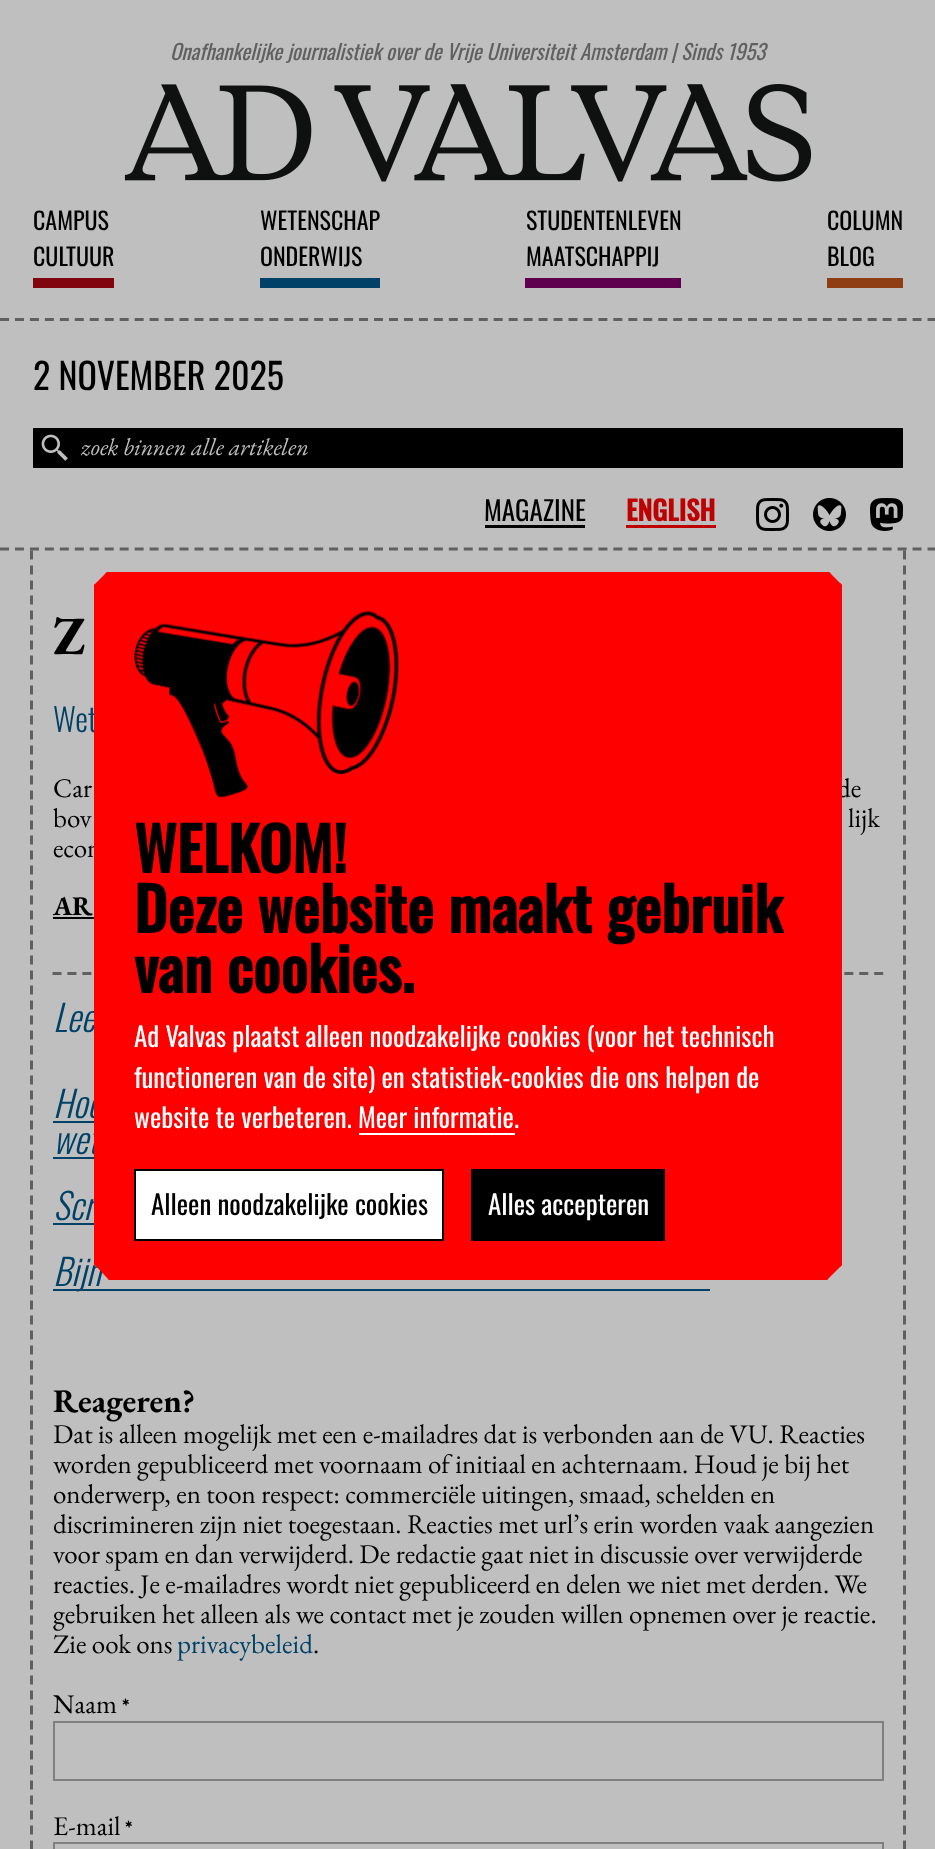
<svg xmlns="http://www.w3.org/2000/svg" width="935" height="1849">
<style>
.a{font:italic 21px Oswald;fill:#606060}
.b{font:24px Oswald;fill:#000}
.c{font:36px Oswald;fill:#000}
.d{font:italic 24px EB Garamond;fill:#bfbfbf}
.e{font:27px Oswald;fill:#000}
.f{font:bold 27px Oswald;fill:#bf0000}
.g{font:bold 54px EB Garamond;fill:#000}
.h{font:300 32px Oswald;fill:#004167}
.i{font:27px EB Garamond;fill:#000}
.j{font:bold 27px EB Garamond;fill:#000}
.k{font:italic 300 36px Oswald;fill:#004167}
.l{font:bold 33px EB Garamond;fill:#000}
.m{font:27px EB Garamond;fill:#004167}
.n{font:bold 21px EB Garamond;fill:#000}
.o{font:bold 60px Oswald;fill:#000}
.p{font:27px Oswald;fill:#fff}
</style>
<rect width="100%" height="100%" fill="#bfbfbf"/>
<image href="1.png" x="124" y="84" width="688" height="98"/>
<path fill="#80050e" d="M33 278h81v10H33z"/>
<path fill="#004167" d="M260 278h120v10H260z"/>
<path fill="#5e004e" d="M525 278h156v10H525z"/>
<path fill="#8e3e12" d="M827 278h76v10H827z"/>
<path fill="none" stroke="#606060" stroke-width="3" stroke-dasharray="9 5.96" d="M0 319.5h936"/>
<path fill="#000" d="M33 428h870v40H33z"/>
<image href="2.png" x="41" y="434" width="27" height="27"/>
<path fill="#000" d="M485 525h100v3H485z"/>
<path fill="#bf0000" d="M626 525h90v3H626z"/>
<image href="3.png" x="756" y="498" width="33" height="33"/>
<image href="4.png" x="813" y="498" width="33" height="33"/>
<image href="5.png" x="870" y="498" width="33" height="33"/>
<path fill="none" stroke="#606060" stroke-width="3" stroke-dasharray="9 5.96" d="M0 549h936"/>
<path fill="none" stroke="#606060" stroke-width="3" stroke-dasharray="9 6" d="M904.5 550.5v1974"/>
<path fill="none" stroke="#606060" stroke-width="3" stroke-dasharray="9 6" d="M31.5 550.5v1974"/>
<path fill="#000" d="M53 917h41v2H53z"/>
<path fill="none" stroke="#606060" stroke-width="3" stroke-dasharray="9 5.94" d="M52.5 973.5h831"/>
<path fill="#004167" d="M53 1121h41v2H53z"/>
<path fill="#004167" d="M53 1157h41v2H53z"/>
<path fill="#004167" d="M53 1223h41v2H53z"/>
<path fill="#004167" d="M53 1289h657v2H53z"/>
<path fill="none" stroke="#808080" stroke-width="2" d="M54 1722h829v58H54z"/>
<path fill="none" stroke="#808080" stroke-width="2" d="M54 1843h829v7H54z"/>
<text class="a" x="170" y="60">Onafhankelijke journalistiek over de Vrije Universiteit Amsterdam | Sinds 1953</text>
<text class="b" x="33" y="230">CAMPUS</text>
<text class="b" x="33" y="266">CULTUUR</text>
<text class="b" x="260" y="230">WETENSCHAP</text>
<text class="b" x="260" y="266">ONDERWIJS</text>
<text class="b" x="526" y="230">STUDENTENLEVEN</text>
<text class="b" x="526" y="266">MAATSCHAPPIJ</text>
<text class="b" x="827" y="230">COLUMN</text>
<text class="b" x="827" y="266">BLOG</text>
<text class="c" x="33" y="390">2 NOVEMBER 2025</text>
<text class="d" x="81" y="455">zoek binnen alle artikelen</text>
<text class="e" x="484" y="521">MAGAZINE</text>
<text class="f" x="626" y="521">ENGLISH</text>
<text class="g" x="53" y="654">Z</text>
<text class="h" x="53" y="732">Wet</text>
<text class="i" x="53" y="797">Car</text>
<text class="i" x="837" y="797">de</text>
<text class="i" x="53" y="827">bov</text>
<text class="i" x="848" y="827">lijk</text>
<text class="i" x="53" y="857">econ</text>
<text class="j" x="53" y="915">AR</text>
<text class="k" x="53" y="1032">Lee</text>
<text class="k" x="53" y="1118">Hoe</text>
<text class="k" x="53" y="1154">wet</text>
<text class="k" x="53" y="1220">Scr</text>
<text class="k" x="53" y="1286">Bijn</text>
<text class="l" x="53" y="1412">Reageren?</text>
<text class="i" x="53" y="1443">Dat is alleen mogelijk met een e-mailadres dat is verbonden aan de VU. Reacties</text>
<text class="i" x="53" y="1473">worden gepubliceerd met voornaam of initiaal en achternaam. Houd je bij het</text>
<text class="i" x="53" y="1503">onderwerp, en toon respect: commerciële uitingen, smaad, schelden en</text>
<text class="i" x="53" y="1533">discrimineren zijn niet toegestaan. Reacties met url’s erin worden vaak aangezien</text>
<text class="i" x="53" y="1563">voor spam en dan verwijderd. De redactie gaat niet in discussie over verwijderde</text>
<text class="i" x="53" y="1593">reacties. Je e-mailadres wordt niet gepubliceerd en delen we niet met derden. We</text>
<text class="i" x="53" y="1623">gebruiken het alleen als we contact met je zouden willen opnemen over je reactie.</text>
<text class="i" x="53" y="1653">Zie ook ons</text>
<text class="m" x="177" y="1653">privacybeleid</text>
<text class="i" x="313" y="1653">.</text>
<text class="i" x="53" y="1713">Naam</text>
<text class="n" x="122" y="1713">*</text>
<text class="i" x="53" y="1835">E-mail</text>
<text class="n" x="125" y="1835">*</text>
<path fill="#f00" d="M842 1265l-15 15h-718l-15-16v-679l13-13h722l13 13z"/>
<path fill="#f00" fill-rule="evenodd" d="M842 585v680l-2 2v-684zm-13-13h-722l-2 2h726zm-734 12l-1 1v679l1 2zm13 695l1 1h718l1-1z"/>
<image href="6.png" x="134" y="610" width="265" height="188"/>
<text class="o" x="134" y="873">WELKOM!</text>
<text class="o" x="134" y="933">Deze website maakt gebruik</text>
<text class="o" x="134" y="993">van cookies.</text>
<text class="p" x="134" y="1047">Ad Valvas plaatst alleen noodzakelijke cookies (voor het technisch</text>
<text class="p" x="134" y="1088">functioneren van de site) en statistiek-cookies die ons helpen de</text>
<text class="p" x="134" y="1128">website te verbeteren. Meer informatie.</text>
<path fill="#fff" d="M359 1133h156v2H359z"/>
<path fill="#fff" stroke="#000" stroke-width="2" d="M135 1170h308v70H135z"/>
<text class="e" x="151" y="1215">Alleen noodzakelijke cookies</text>
<path fill="#000" d="M471 1169h194v72H471z"/>
<text class="p" x="488" y="1215">Alles accepteren</text>
</svg>
